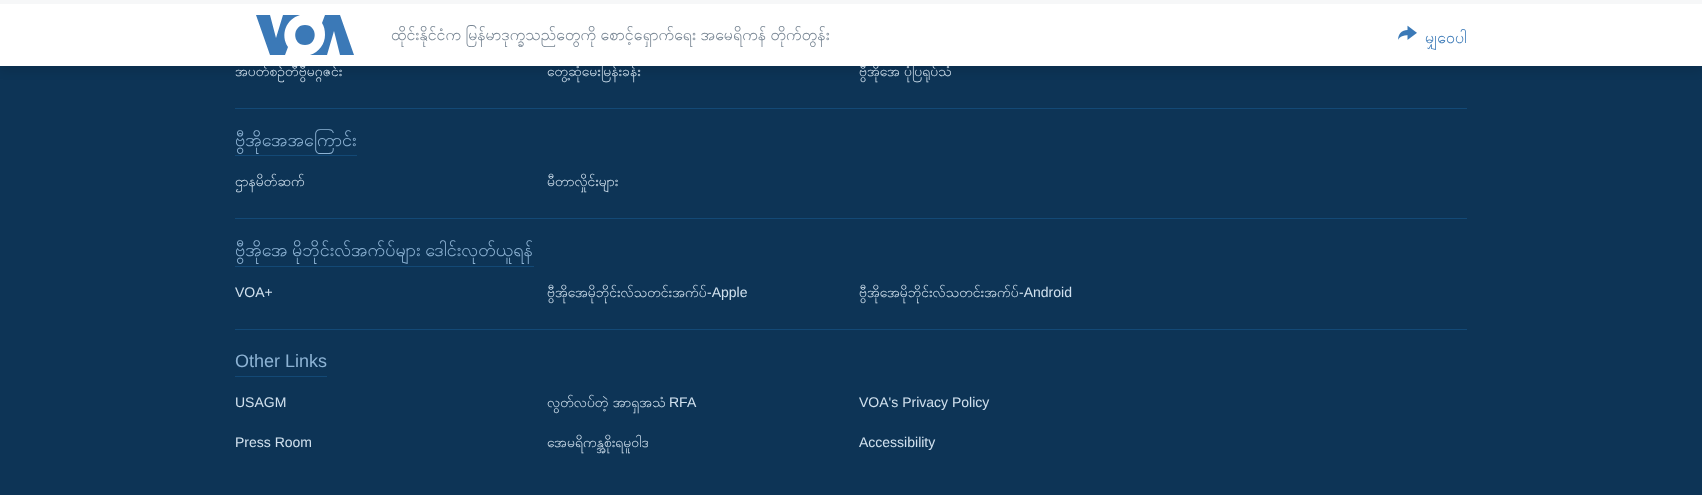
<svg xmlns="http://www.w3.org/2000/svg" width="1702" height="495">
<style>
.a{font:14px Padauk;fill:#d1e1ee}
.b{font:16px Padauk;fill:#768492}
.c{font:16px Padauk;fill:#3a79b7}
.d{font:18px Padauk;fill:#8db3d4}
.e{font:14px Liberation Sans;fill:#d1e1ee}
.f{font:18px Liberation Sans;fill:#8db3d4}
</style>
<defs>
<clipPath id="clip1"><path d="M391 21h990v28H391z"/></clipPath>
</defs>
<rect width="100%" height="100%" fill="#0d3456"/>
<path fill="#0000001a" filter="blur(5px)" d="M0 5h1702v66H0z"/>
<path fill="#f6f7f8" d="M0 0h1702v4H0z"/>
<path fill="#134976" d="M235 108h1232v1H235z"/>
<path fill="#134976" d="M235 155h122v1H235z"/>
<path fill="#134976" d="M235 218h1232v1H235z"/>
<path fill="#134976" d="M235 266h299v1H235z"/>
<path fill="#134976" d="M235 329h1232v1H235z"/>
<path fill="#134976" d="M235 376h92v1H235z"/>
<text class="a" x="235" y="76">အပတ်စဉ်တီဗွီမဂ္ဂဇင်း</text>
<text class="a" x="547" y="76">တွေ့ဆုံမေးမြန်းခန်း</text>
<text class="a" x="859" y="76" word-spacing="-1">ဗွီအိုအေ ပုံပြရုပ်သံ</text>
<path fill="#fff" d="M0 4h1702v62H0z"/>
<g clip-path="url(#clip1)">
<text class="b" x="391" y="40" word-spacing="-1.5">ထိုင်းနိုင်ငံက မြန်မာဒုက္ခသည်တွေကို စောင့်ရှောက်ရေး အမေရိကန် တိုက်တွန်း</text>
</g>
<text class="c" x="1425" y="43">မျှဝေပါ</text>
<image href="1.png" x="1398" y="25" width="19" height="15"/>
<path fill="#3b79b7" d="M288 47l-3 8h-15l-14-40h14l6 23l7-23h17c-14 4-20 20-12 32zm17-22c-13 0-13 20 0 20c13 0 13-20 0-20zm20 10c0 9-6 17-15 20h17l7-24l6 24h14l-14-40h-15l-3 8c2 3 3 7 3 12z"/>
<text class="d" x="235" y="146">ဗွီအိုအေအကြောင်း</text>
<text class="a" x="235" y="186">ဌာနမိတ်ဆက်</text>
<text class="a" x="547" y="186">မီတာလှိုင်းများ</text>
<text class="d" x="235" y="256" word-spacing="-2">ဗွီအိုအေ မိုဘိုင်းလ်အက်ပ်များ ဒေါင်းလုတ်ယူရန်</text>
<text class="e" x="235" y="297">VOA+</text>
<text class="a" x="547" y="297">ဗွီအိုအေမိုဘိုင်းလ်သတင်းအက်ပ်</text>
<text class="e" x="707" y="297">-Apple</text>
<text class="a" x="859" y="297">ဗွီအိုအေမိုဘိုင်းလ်သတင်းအက်ပ်</text>
<text class="e" x="1019" y="297">-Android</text>
<text class="f" x="235" y="367">Other Links</text>
<text class="e" x="235" y="407">USAGM</text>
<text class="a" x="547" y="407" word-spacing="-1">လွတ်လပ်တဲ့ အာရှအသံ</text>
<text class="e" x="669" y="407">RFA</text>
<text class="e" x="859" y="407">VOA's Privacy Policy</text>
<text class="e" x="235" y="447">Press Room</text>
<text class="a" x="547" y="447">အေမရိကန္အစိုးရမူဝါဒ</text>
<text class="e" x="859" y="447">Accessibility</text>
</svg>
